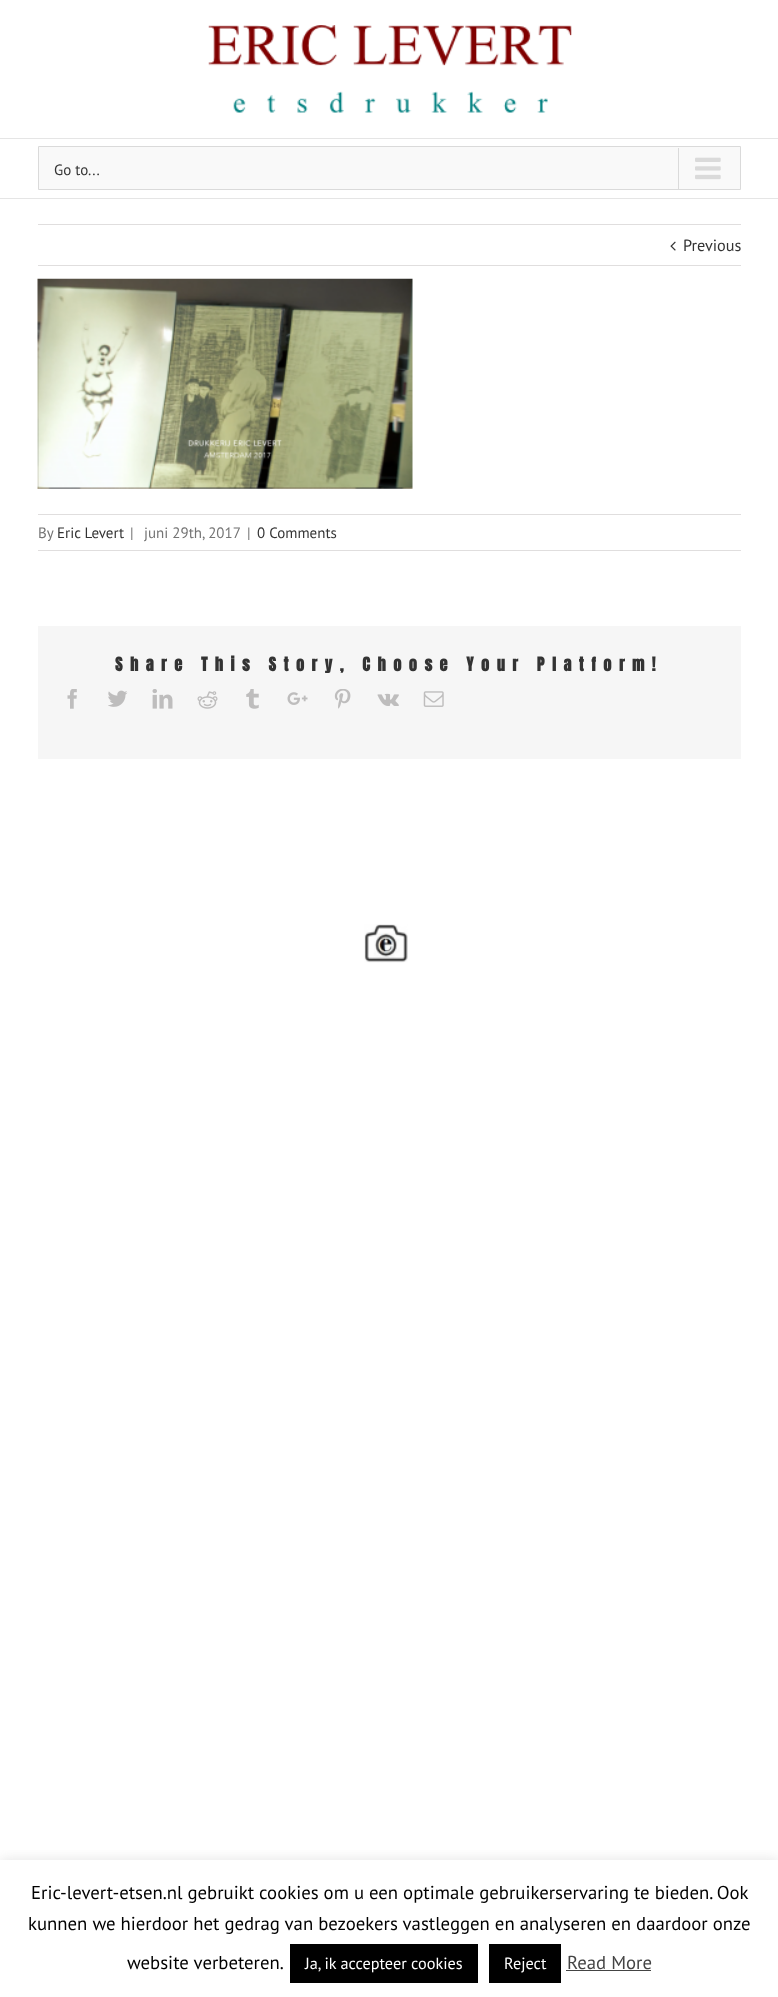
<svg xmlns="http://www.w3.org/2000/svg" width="778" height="1997">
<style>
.a{font:15px PT Sans;fill:#333}
.b{font:16.25px PT Sans;fill:#333}
.c{font:15px PT Sans;fill:#747474}
.d{font:bold 16.25px Anton;letter-spacing:7.5px;fill:#333}
.e{font:18.75px PT Sans;fill:#000}
.f{font:16.25px PT Sans;fill:#fff}
.g{font:18.75px PT Sans;fill:#444}
</style>
<defs>
<clipPath id="clip1"><path d="M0 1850h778v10H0z"/></clipPath>
</defs>
<rect width="100%" height="100%" fill="#fff"/>
<path fill="#e5e5e5" d="M0 138h778v1H0z"/>
<image href="1.png" x="208" y="25" width="364" height="88"/>
<path fill="#e5e5e5" d="M0 198h778v1H0z"/>
<path fill="#f9f9f9" stroke="#dadada" d="M38.5 146.5h702v43H38.5z"/>
<path fill="#dadada" d="M678 148h1v41H678z"/>
<image href="2.png" x="695" y="157" width="26" height="23"/>
<path fill="#e0dede" d="M38 224h703v1H38z"/>
<path fill="#e0dede" d="M38 265h703v1H38z"/>
<image href="3.png" x="670" y="241" width="6" height="10"/>
<image href="4.png" x="37" y="278" width="376" height="211"/>
<path fill="#e0dede" d="M38 514h703v1H38z"/>
<path fill="#e0dede" d="M38 550h703v1H38z"/>
<path fill="#f6f6f6" d="M38 626h703v133H38z"/>
<image href="5.png" x="67" y="689" width="10" height="20"/>
<image href="6.png" x="108" y="690" width="20" height="17"/>
<image href="7.png" x="152" y="689" width="21" height="20"/>
<image href="8.png" x="197" y="691" width="21" height="18"/>
<image href="9.png" x="246" y="689" width="13" height="20"/>
<image href="10.png" x="287" y="692" width="21" height="13"/>
<image href="11.png" x="334" y="689" width="17" height="20"/>
<image href="12.png" x="377" y="693" width="22" height="13"/>
<image href="13.png" x="423" y="691" width="21" height="16"/>
<image href="14.png" x="364" y="924" width="44" height="39"/>
<g clip-path="url(#clip1)">
<path fill="#acabab4d" filter="blur(6px)" d="M0 1859h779v137H0z"/>
</g>
<path fill="#000" d="M290 1944h188v39H290z"/>
<path fill="#000" d="M489 1944h72v39H489z"/>
<path fill="#444" d="M566 1970h85v1H566z"/>
<text class="a" x="54" y="175">Go to...</text>
<text class="b" x="683" y="251">Previous</text>
<text class="c" x="38" y="538">By</text>
<text class="a" x="57" y="538">Eric Levert</text>
<text class="c" x="130" y="538">|</text>
<text class="c" x="144" y="538">juni 29th, 2017</text>
<text class="c" x="247" y="538">|</text>
<text class="a" x="257" y="538">0 Comments</text>
<text class="d" x="115" y="671">Share This Story, Choose Your Platform!</text>
<text class="e" x="31" y="1899">Eric-levert-etsen.nl gebruikt cookies om u een optimale gebruikerservaring te bieden. Ook</text>
<text class="e" x="28" y="1930">kunnen we hierdoor het gedrag van bezoekers vastleggen en analyseren en daardoor onze</text>
<text class="e" x="127" y="1969">website verbeteren.</text>
<text class="f" x="305" y="1969">Ja, ik accepteer cookies</text>
<text class="f" x="504" y="1969">Reject</text>
<text class="g" x="567" y="1969">Read More</text>
</svg>
